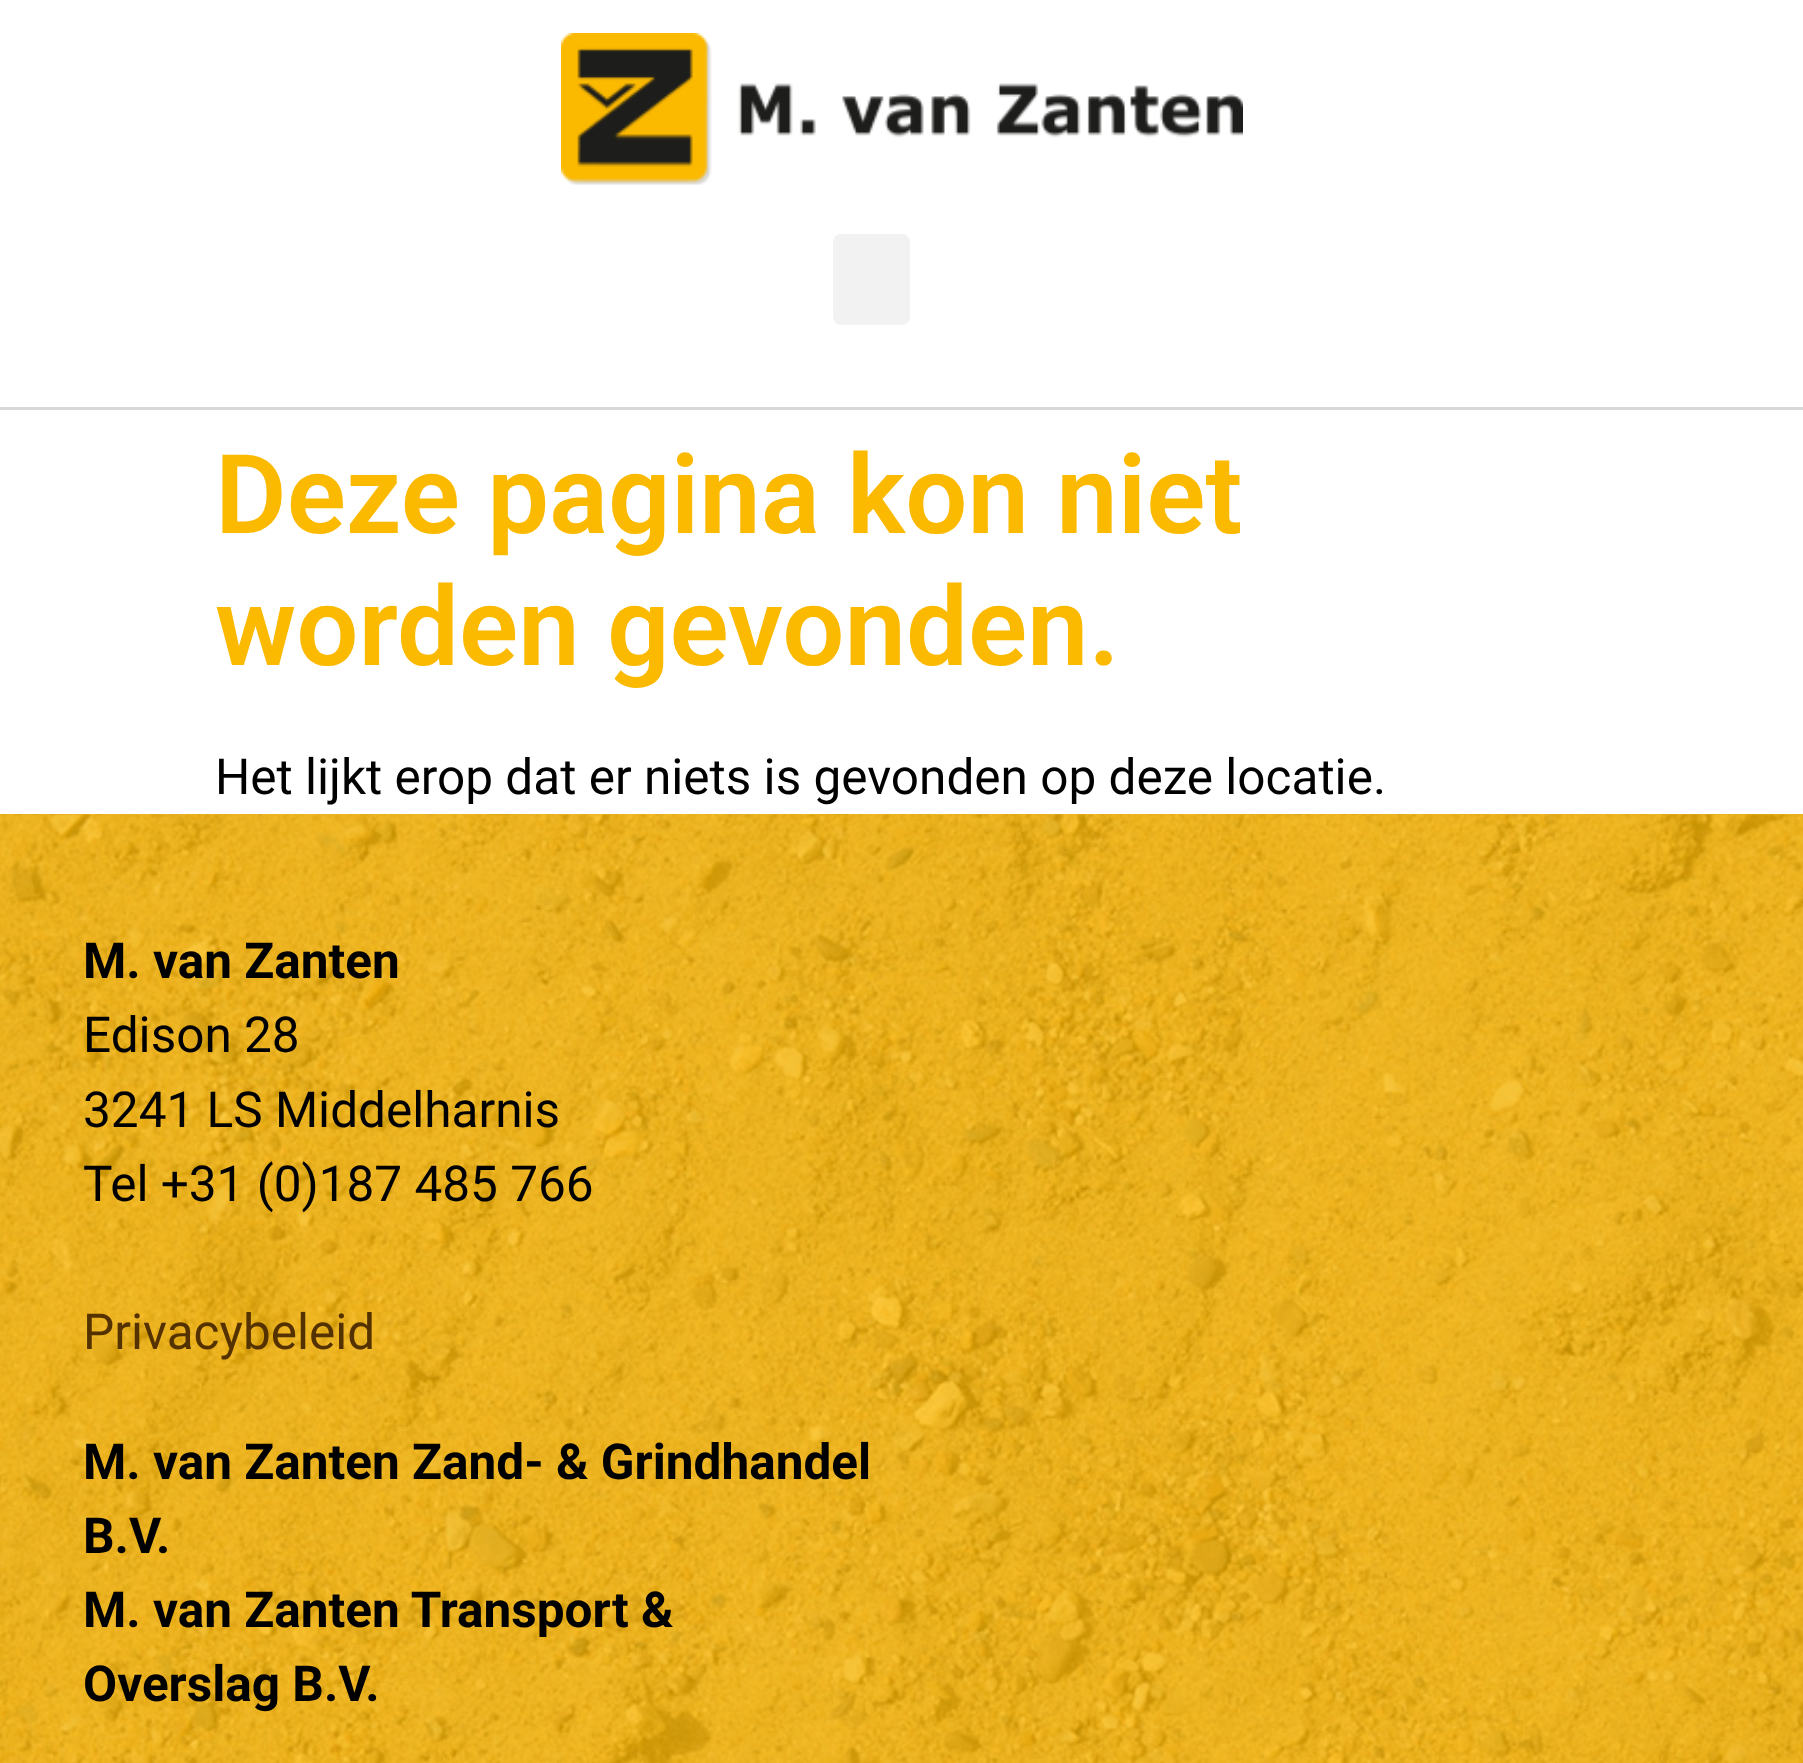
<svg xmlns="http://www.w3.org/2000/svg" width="1803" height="1763">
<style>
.a{font:600 110px Roboto;fill:#fbb900}
.b{font:49.5px Roboto;fill:#000}
.c{font:bold 49.5px Roboto;fill:#000}
.d{font:49.5px Roboto;fill:#543200}
</style>
<rect width="100%" height="100%" fill="#fff"/>
<path fill="#d8d8d8" d="M0 407h1803v3H0z"/>
<image href="1.png" x="561" y="33" width="682" height="152"/>
<rect fill="#f2f2f2" x="833" y="234" width="77" height="91" rx="8"/>
<image href="2.png" x="0" y="814" width="1803" height="949"/>
<text class="a" x="215" y="533">Deze pagina kon niet</text>
<text class="a" x="215" y="665">worden gevonden.</text>
<text class="b" x="215" y="794">Het lijkt erop dat er niets is gevonden op deze locatie.</text>
<text class="c" x="83" y="978">M. van Zanten</text>
<text class="b" x="83" y="1052">Edison 28</text>
<text class="b" x="83" y="1127">3241 LS Middelharnis</text>
<text class="b" x="83" y="1201">Tel +31 (0)187 485 766</text>
<text class="d" x="83" y="1349">Privacybeleid</text>
<text class="c" x="83" y="1479">M. van Zanten Zand- &amp; Grindhandel</text>
<text class="c" x="83" y="1553">B.V.</text>
<text class="c" x="83" y="1627">M. van Zanten Transport &amp;</text>
<text class="c" x="83" y="1701">Overslag B.V.</text>
</svg>
